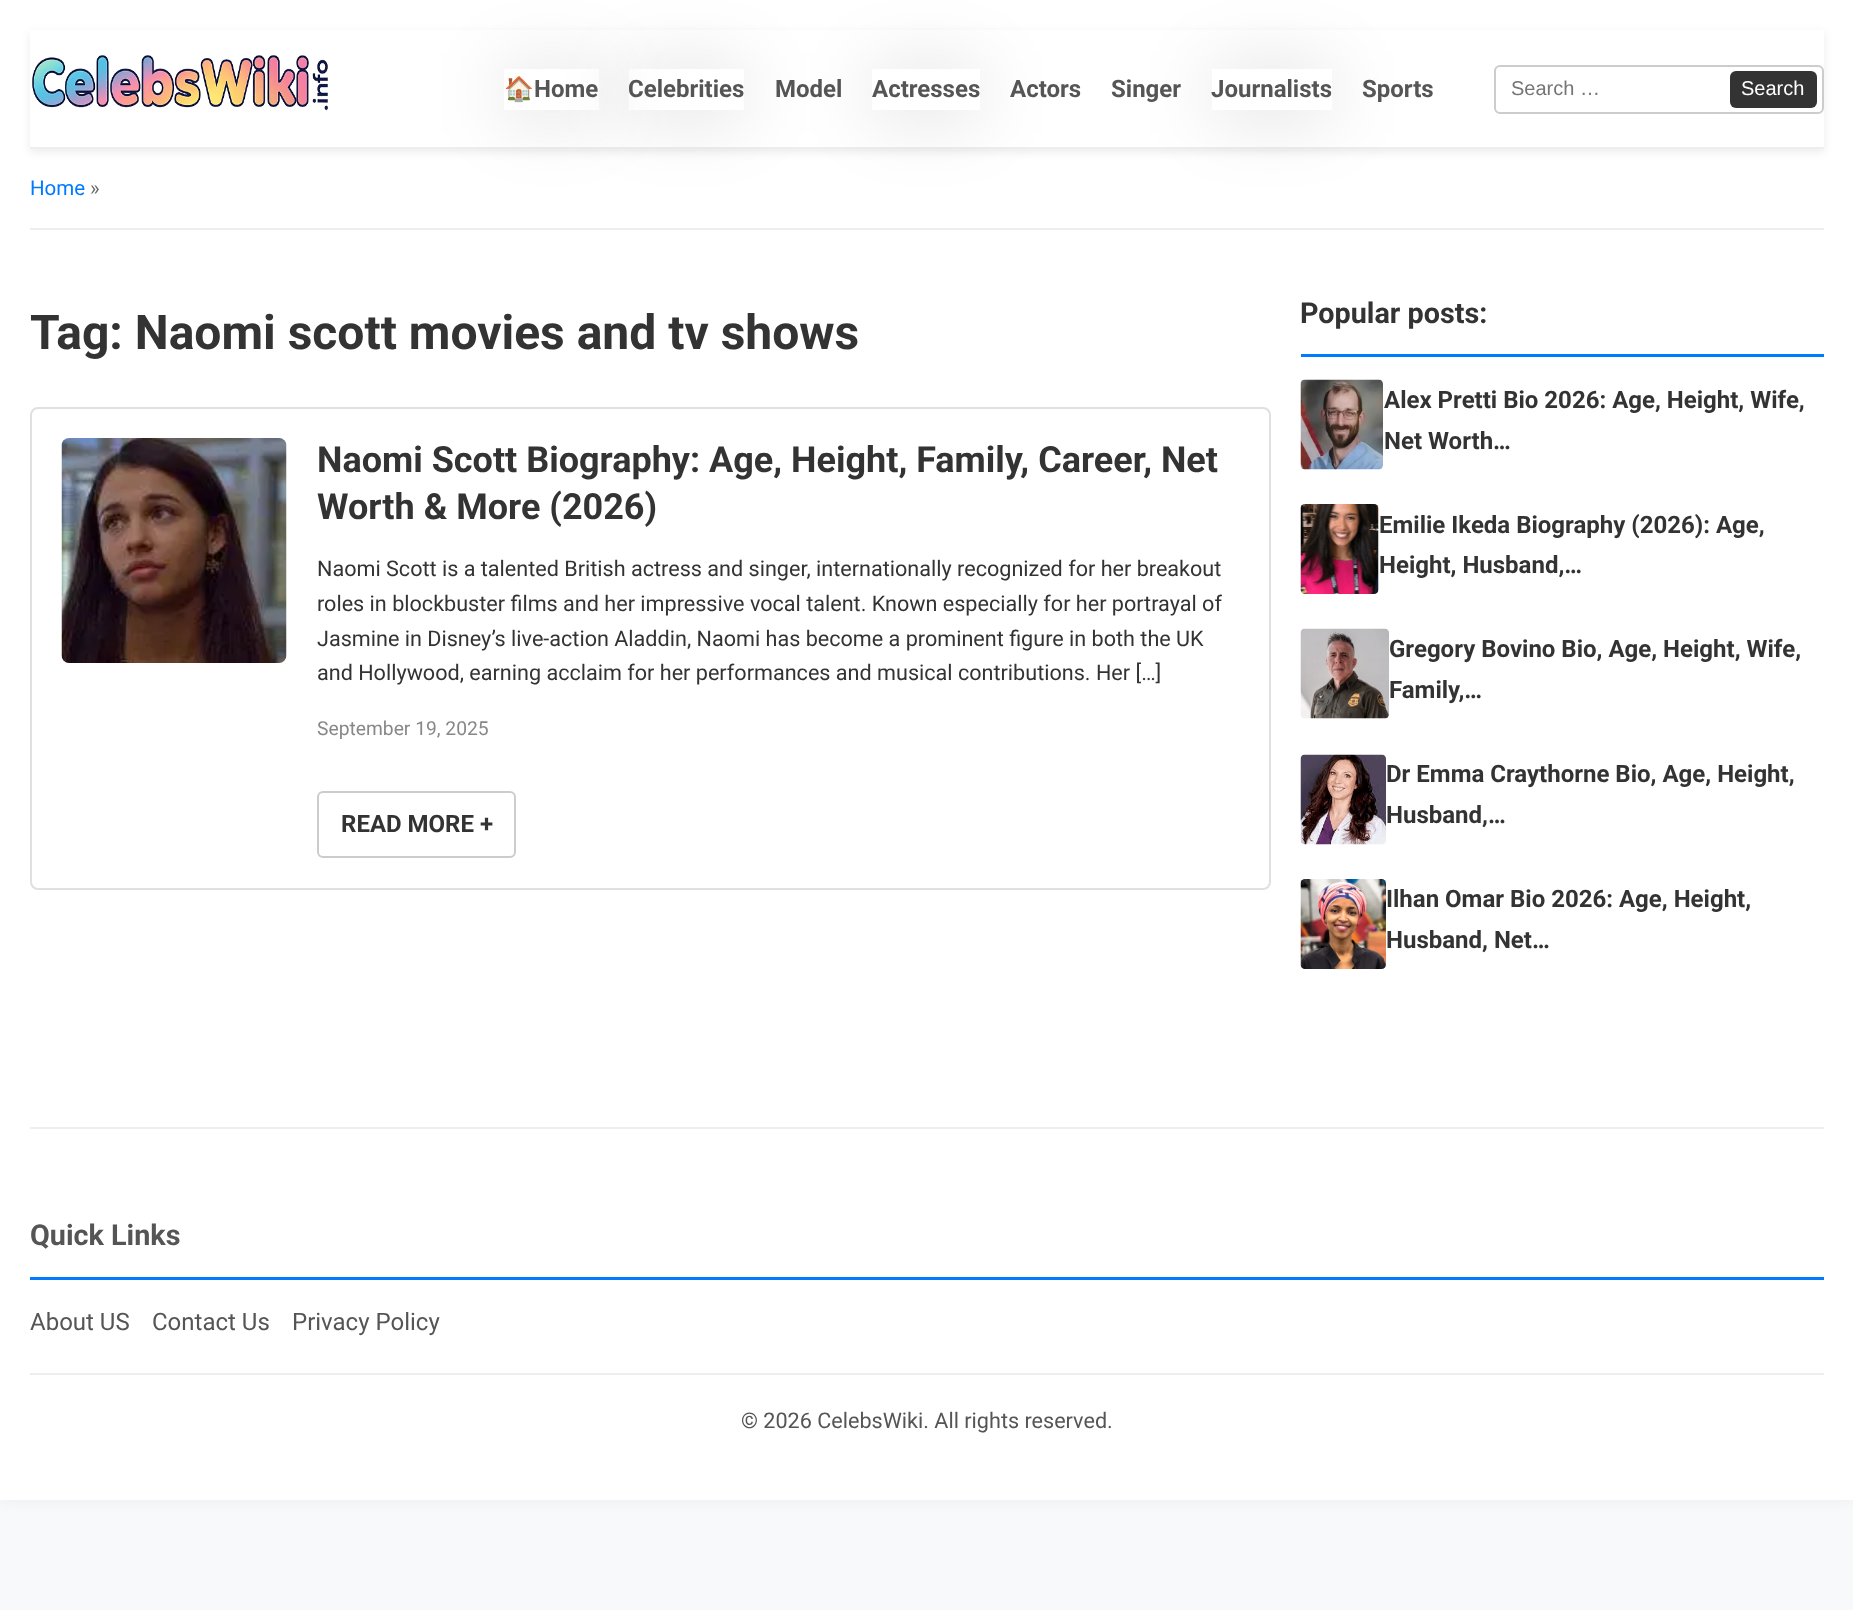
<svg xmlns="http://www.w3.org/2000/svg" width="1853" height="1610">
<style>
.a{font:bold 24px Noto Color Emoji;fill:#555}
.b{font:bold 24px Roboto;fill:#555}
.c{font:20px Liberation Sans;fill:#757575}
.d{font:20px Liberation Sans;fill:#fff}
.e{font:20.5px Roboto;fill:#007bff}
.f{font:20.5px Roboto;fill:#666}
.g{font:bold 48px Roboto;fill:#333}
.h{font:bold 36px Roboto;fill:#333}
.i{font:21.6px Roboto;fill:#333}
.j{font:19.25px Roboto;fill:#888}
.k{font:bold 24px Roboto;fill:#333}
.l{font:bold 28.75px Roboto;fill:#333}
.m{font:bold 28.75px Roboto;fill:#555}
.n{font:24px Roboto;fill:#555}
.o{font:21.6px Roboto;fill:#555}
</style>
<defs>
<clipPath id="clip1"><path d="M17 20h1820v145h-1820zm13 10h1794v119h-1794z" clip-rule="evenodd"/></clipPath>
<clipPath id="clip2"><path d="M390 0h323v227h-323zm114 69h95v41h-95z" clip-rule="evenodd"/></clipPath>
<clipPath id="clip3"><path d="M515 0h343v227h-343zm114 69h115v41h-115z" clip-rule="evenodd"/></clipPath>
<clipPath id="clip4"><path d="M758 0h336v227h-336zm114 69h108v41h-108z" clip-rule="evenodd"/></clipPath>
<clipPath id="clip5"><path d="M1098 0h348v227h-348zm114 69h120v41h-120z" clip-rule="evenodd"/></clipPath>
</defs>
<rect width="100%" height="100%" fill="#f8f9fa"/>
<path fill="#0000000d" filter="blur(7.5px)" d="M0 0h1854v1500H0z"/>
<path fill="#fff" d="M0 0h1853v1500H0z"/>
<g clip-path="url(#clip1)">
<path fill="#00000014" filter="blur(4px)" d="M30 33h1794v119H30z"/>
</g>
<path fill="#eee" d="M30 147h1794v2H30z"/>
<image href="1.png" x="32" y="55" width="296" height="56"/>
<g clip-path="url(#clip2)">
<path fill="#00000026" filter="blur(37.5px)" d="M504 72h95v41H504z"/>
</g>
<g clip-path="url(#clip3)">
<path fill="#00000026" filter="blur(37.5px)" d="M629 72h115v41H629z"/>
</g>
<g clip-path="url(#clip4)">
<path fill="#00000026" filter="blur(37.5px)" d="M872 72h108v41H872z"/>
</g>
<g clip-path="url(#clip5)">
<path fill="#00000026" filter="blur(37.5px)" d="M1212 72h120v41H1212z"/>
</g>
<rect fill="none" stroke="#ccc" stroke-width="2" x="1495" y="66" width="328" height="47" rx="5"/>
<rect fill="#333" x="1730" y="71" width="87" height="37" rx="6"/>
<path fill="#eee" d="M30 228h1794v2H30z"/>
<rect fill="none" stroke="#e0e0e0" stroke-width="2" x="31" y="408" width="1239" height="481" rx="7"/>
<image href="2.png" x="61" y="438" width="226" height="225"/>
<rect fill="none" stroke="#ccc" stroke-width="2" x="318" y="792" width="197" height="65" rx="5"/>
<path fill="#007bff" d="M1301 354h523v3H1301z"/>
<image href="3.png" x="1300" y="379" width="83" height="91"/>
<image href="4.png" x="1300" y="504" width="79" height="90"/>
<image href="5.png" x="1300" y="628" width="89" height="91"/>
<image href="6.png" x="1300" y="754" width="86" height="91"/>
<image href="7.png" x="1300" y="879" width="86" height="90"/>
<path fill="#eee" d="M30 1127h1794v2H30z"/>
<path fill="#eee" d="M30 1373h1794v2H30z"/>
<path fill="#007bff" d="M30 1277h1794v3H30z"/>
<text class="a" x="504" y="97">🏠</text>
<text class="b" x="534" y="97">Home</text>
<text class="b" x="628" y="97">Celebrities</text>
<text class="b" x="775" y="97">Model</text>
<text class="b" x="872" y="97">Actresses</text>
<text class="b" x="1010" y="97">Actors</text>
<text class="b" x="1111" y="97">Singer</text>
<text class="b" x="1211" y="97">Journalists</text>
<text class="b" x="1362" y="97">Sports</text>
<text class="c" x="1511" y="95">Search …</text>
<text class="d" x="1741" y="95">Search</text>
<text class="e" x="30" y="195">Home</text>
<text class="f" x="90" y="195">»</text>
<text class="g" x="30" y="349">Tag: Naomi scott movies and tv shows</text>
<text class="h" x="317" y="472">Naomi Scott Biography: Age, Height, Family, Career, Net</text>
<text class="h" x="317" y="519">Worth &amp; More (2026)</text>
<text class="i" x="317" y="576">Naomi Scott is a talented British actress and singer, internationally recognized for her breakout</text>
<text class="i" x="317" y="611">roles in blockbuster films and her impressive vocal talent. Known especially for her portrayal of</text>
<text class="i" x="317" y="646">Jasmine in Disney’s live-action Aladdin, Naomi has become a prominent figure in both the UK</text>
<text class="i" x="317" y="680">and Hollywood, earning acclaim for her performances and musical contributions. Her […]</text>
<text class="j" x="317" y="735">September 19, 2025</text>
<text class="k" x="341" y="832">READ MORE +</text>
<text class="l" x="1300" y="323">Popular posts:</text>
<text class="k" x="1384" y="408">Alex Pretti Bio 2026: Age, Height, Wife,</text>
<text class="k" x="1384" y="449">Net Worth…</text>
<text class="k" x="1379" y="533">Emilie Ikeda Biography (2026): Age,</text>
<text class="k" x="1379" y="573">Height, Husband,…</text>
<text class="k" x="1389" y="657">Gregory Bovino Bio, Age, Height, Wife,</text>
<text class="k" x="1389" y="698">Family,…</text>
<text class="k" x="1386" y="782">Dr Emma Craythorne Bio, Age, Height,</text>
<text class="k" x="1386" y="823">Husband,…</text>
<text class="k" x="1386" y="907">Ilhan Omar Bio 2026: Age, Height,</text>
<text class="k" x="1386" y="948">Husband, Net…</text>
<text class="m" x="30" y="1245">Quick Links</text>
<text class="n" x="30" y="1330">About US</text>
<text class="n" x="152" y="1330">Contact Us</text>
<text class="n" x="292" y="1330">Privacy Policy</text>
<text class="o" x="741" y="1428">© 2026 CelebsWiki. All rights reserved.</text>
</svg>
